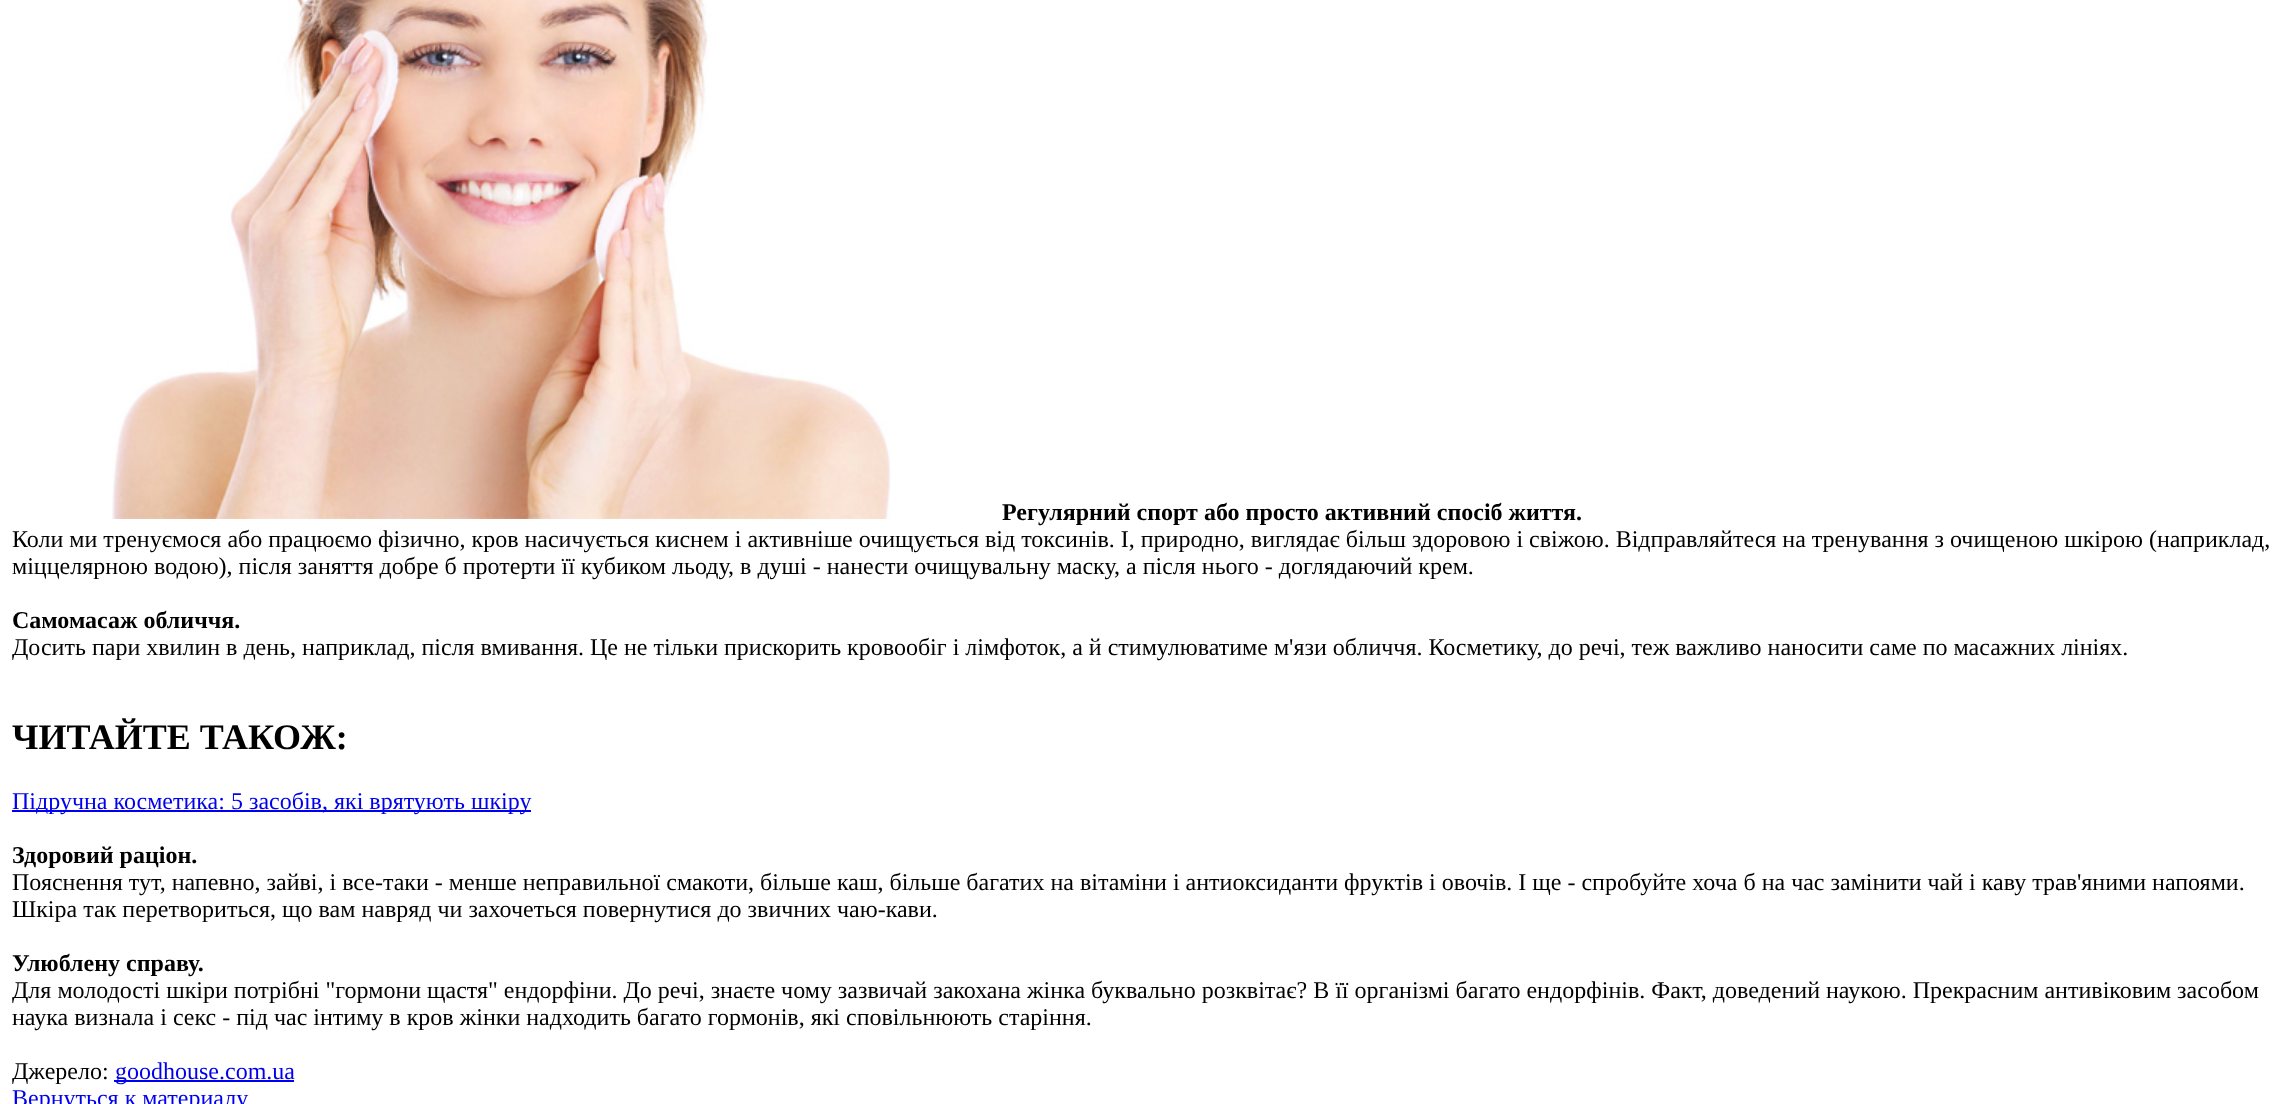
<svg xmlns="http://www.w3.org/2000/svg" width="2283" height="1104">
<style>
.a{font:bold 24px Liberation Serif;fill:#000}
.b{font:24px Liberation Serif;fill:#000}
.c{font:bold 36px Liberation Serif;fill:#000}
.d{font:24px Liberation Serif;fill:#00e}
</style>
<rect width="100%" height="100%" fill="#fff"/>
<image href="1.png" x="112" y="0" width="779" height="519"/>
<path fill="#00e" d="M12 810h519v2H12z"/>
<path fill="#00e" d="M114 1080h180v2H114z"/>
<text class="a" x="1002" y="520">Регулярний спорт або просто активний спосіб життя.</text>
<text class="b" x="12" y="547">Коли ми тренуємося або працюємо фізично, кров насичується киснем і активніше очищується від токсинів. І, природно, виглядає більш здоровою і свіжою. Відправляйтеся на тренування з очищеною шкірою (наприклад,</text>
<text class="b" x="12" y="574">міццелярною водою), після заняття добре б протерти її кубиком льоду, в душі - нанести очищувальну маску, а після нього - доглядаючий крем.</text>
<text class="a" x="12" y="628">Самомасаж обличчя.</text>
<text class="b" x="12" y="655">Досить пари хвилин в день, наприклад, після вмивання. Це не тільки прискорить кровообіг і лімфоток, а й стимулюватиме м'язи обличчя. Косметику, до речі, теж важливо наносити саме по масажних лініях.</text>
<text class="c" x="12" y="749">ЧИТАЙТЕ ТАКОЖ:</text>
<text class="d" x="12" y="809">Підручна косметика: 5 засобів, які врятують шкіру</text>
<text class="a" x="12" y="863">Здоровий раціон.</text>
<text class="b" x="12" y="890">Пояснення тут, напевно, зайві, і все-таки - менше неправильної смакоти, більше каш, більше багатих на вітаміни і антиоксиданти фруктів і овочів. І ще - спробуйте хоча б на час замінити чай і каву трав'яними напоями.</text>
<text class="b" x="12" y="917">Шкіра так перетвориться, що вам навряд чи захочеться повернутися до звичних чаю-кави.</text>
<text class="a" x="12" y="971">Улюблену справу.</text>
<text class="b" x="12" y="998">Для молодості шкіри потрібні "гормони щастя" ендорфіни. До речі, знаєте чому зазвичай закохана жінка буквально розквітає? В її організмі багато ендорфінів. Факт, доведений наукою. Прекрасним антивіковим засобом</text>
<text class="b" x="12" y="1025">наука визнала і секс - під час інтиму в кров жінки надходить багато гормонів, які сповільнюють старіння.</text>
<text class="b" x="12" y="1079">Джерело:</text>
<text class="d" x="115" y="1079">goodhouse.com.ua</text>
<text class="d" x="12" y="1106">Вернуться к материалу</text>
</svg>
